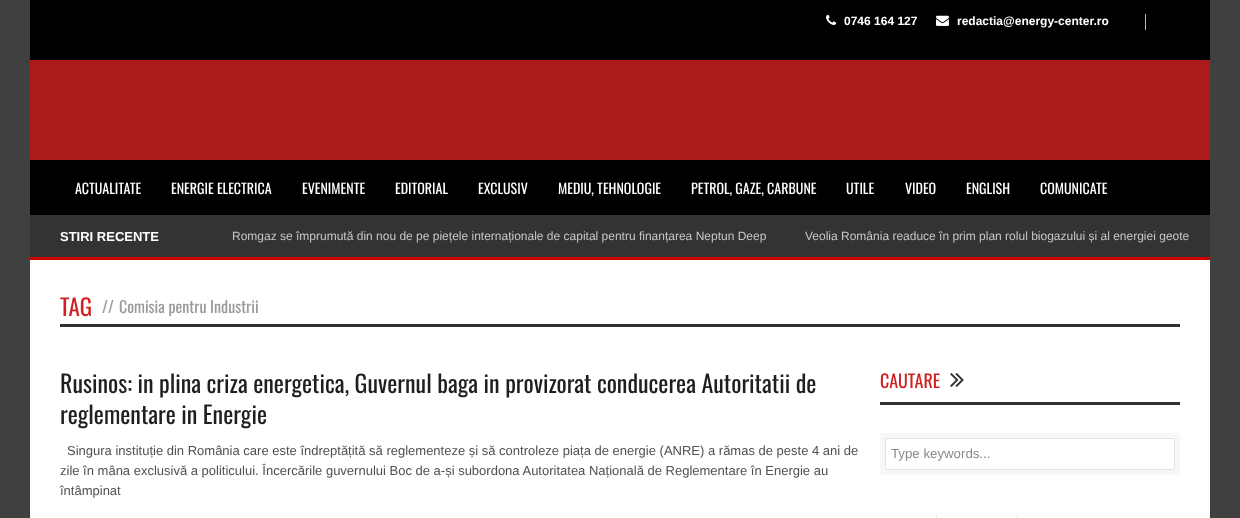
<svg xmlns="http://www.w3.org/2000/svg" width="1240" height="518">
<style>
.a{font:bold 12px Liberation Sans;fill:#fff}
.b{font:14px Oswald;fill:#fff}
.c{font:bold 13px Liberation Sans;fill:#fff}
.d{font:12px Liberation Sans;fill:#c7c7c7}
.e{font:23px Oswald;fill:#cf2121}
.f{font:16px Oswald;fill:#999}
.g{font:24px Oswald;fill:#1f1f1f}
.h{font:13px Liberation Sans;fill:#505050}
.i{font:18px Oswald;fill:#cf2121}
.j{font:13.25px Liberation Sans;fill:#888}
</style>
<rect width="100%" height="100%" fill="#404040"/>
<path fill="#000" d="M30 0h1180v60H30z"/>
<image href="1.png" x="826" y="14" width="11" height="11"/>
<image href="2.png" x="936" y="15" width="13" height="11"/>
<path fill="#bababa" d="M1145 14h1v16H1145z"/>
<path fill="#ab1b1b" d="M30 60h1180v100H30z"/>
<path fill="#000" d="M30 160h1180v55H30z"/>
<path fill="#333" d="M30 215h1180v42H30z"/>
<path fill="#d10000" d="M30 257h1180v3H30z"/>
<path fill="#fff" d="M30 260h1180v258H30z"/>
<path fill="#313131" d="M60 324h1120v3H60z"/>
<path fill="#313131" d="M880 402h300v3H880z"/>
<image href="3.png" x="950" y="373" width="14" height="14"/>
<path fill="#f7f7f7" d="M882 443c-1 0-2 1-2 2v28c0 1 1 2 2 2h286c1 0 2-1 2-2v-3h-283c-1 0-2-1-2-2v-25z"/>
<path fill="#f7f7f7" d="M892 433c-3 0-2 3-2 5h283c1 0 2 1 2 2v25h3c1 0 2-1 2-2v-28c0-1-1-2-2-2z"/>
<path fill="#f7f7f7" d="M885 468v5c0 1 1 2 2 2h286c1 0 2-1 2-2v-5c0 1-1 2-2 2h-286c-1 0-2-1-2-2z"/>
<path fill="#f7f7f7" d="M1173 470c7 0 7 1 7-6.5v-19c0-7.5 0-6.5-7-6.5c1 0 2 1 2 2v28c0 1-1 2-2 2z"/>
<path fill="#f7f7f7" d="M890 470c0 2-1 5 2 5h287l1-2v-23c0-7 1-7-5-7v25c0 1-1 2-2 2z"/>
<path fill="#f7f7f7" d="M882 433c-1 0-2 1-2 2v28c0 1 1 2 2 2h3v-25c0-1 1-2 2-2h283c0-2 1-5-2-5z"/>
<rect fill="none" stroke="#e3e3e3" x="885.5" y="438.5" width="289" height="31" rx="1.5"/>
<path fill="#e6e6e6" d="M936 515h1v3H936z"/>
<path fill="#e6e6e6" d="M1017 515h1v3H1017z"/>
<text class="a" x="844" y="25">0746 164 127</text>
<text class="a" x="957" y="25">redactia@energy-center.ro</text>
<text class="b" x="75" y="194">ACTUALITATE</text>
<text class="b" x="171" y="194">ENERGIE ELECTRICA</text>
<text class="b" x="302" y="194">EVENIMENTE</text>
<text class="b" x="395" y="194">EDITORIAL</text>
<text class="b" x="478" y="194">EXCLUSIV</text>
<text class="b" x="558" y="194">MEDIU, TEHNOLOGIE</text>
<text class="b" x="691" y="194">PETROL, GAZE, CARBUNE</text>
<text class="b" x="846" y="194">UTILE</text>
<text class="b" x="905" y="194">VIDEO</text>
<text class="b" x="966" y="194">ENGLISH</text>
<text class="b" x="1040" y="194">COMUNICATE</text>
<text class="c" x="60" y="241">STIRI RECENTE</text>
<text class="d" x="232" y="240">Romgaz se împrumută din nou de pe piețele internaționale de capital pentru finanțarea Neptun Deep</text>
<text class="d" x="805" y="240">Veolia România readuce în prim plan rolul biogazului și al energiei geote</text>
<text class="e" x="60" y="316">TAG</text>
<text class="f" x="102" y="313">//</text>
<text class="f" x="119" y="313">Comisia pentru Industrii</text>
<text class="g" x="60" y="393">Rusinos: in plina criza energetica, Guvernul baga in provizorat conducerea Autoritatii de</text>
<text class="g" x="60" y="424">reglementare in Energie</text>
<text class="h" x="67" y="455">Singura instituție din România care este îndreptățită să reglementeze și să controleze piața de energie (ANRE) a rămas de peste 4 ani de</text>
<text class="h" x="60" y="475">zile în mâna exclusivă a politicului. Încercările guvernului Boc de a-și subordona Autoritatea Națională de Reglementare în Energie au</text>
<text class="h" x="60" y="495">întâmpinat</text>
<text class="i" x="880" y="388">CAUTARE</text>
<text class="j" x="891" y="458">Type keywords...</text>
</svg>
